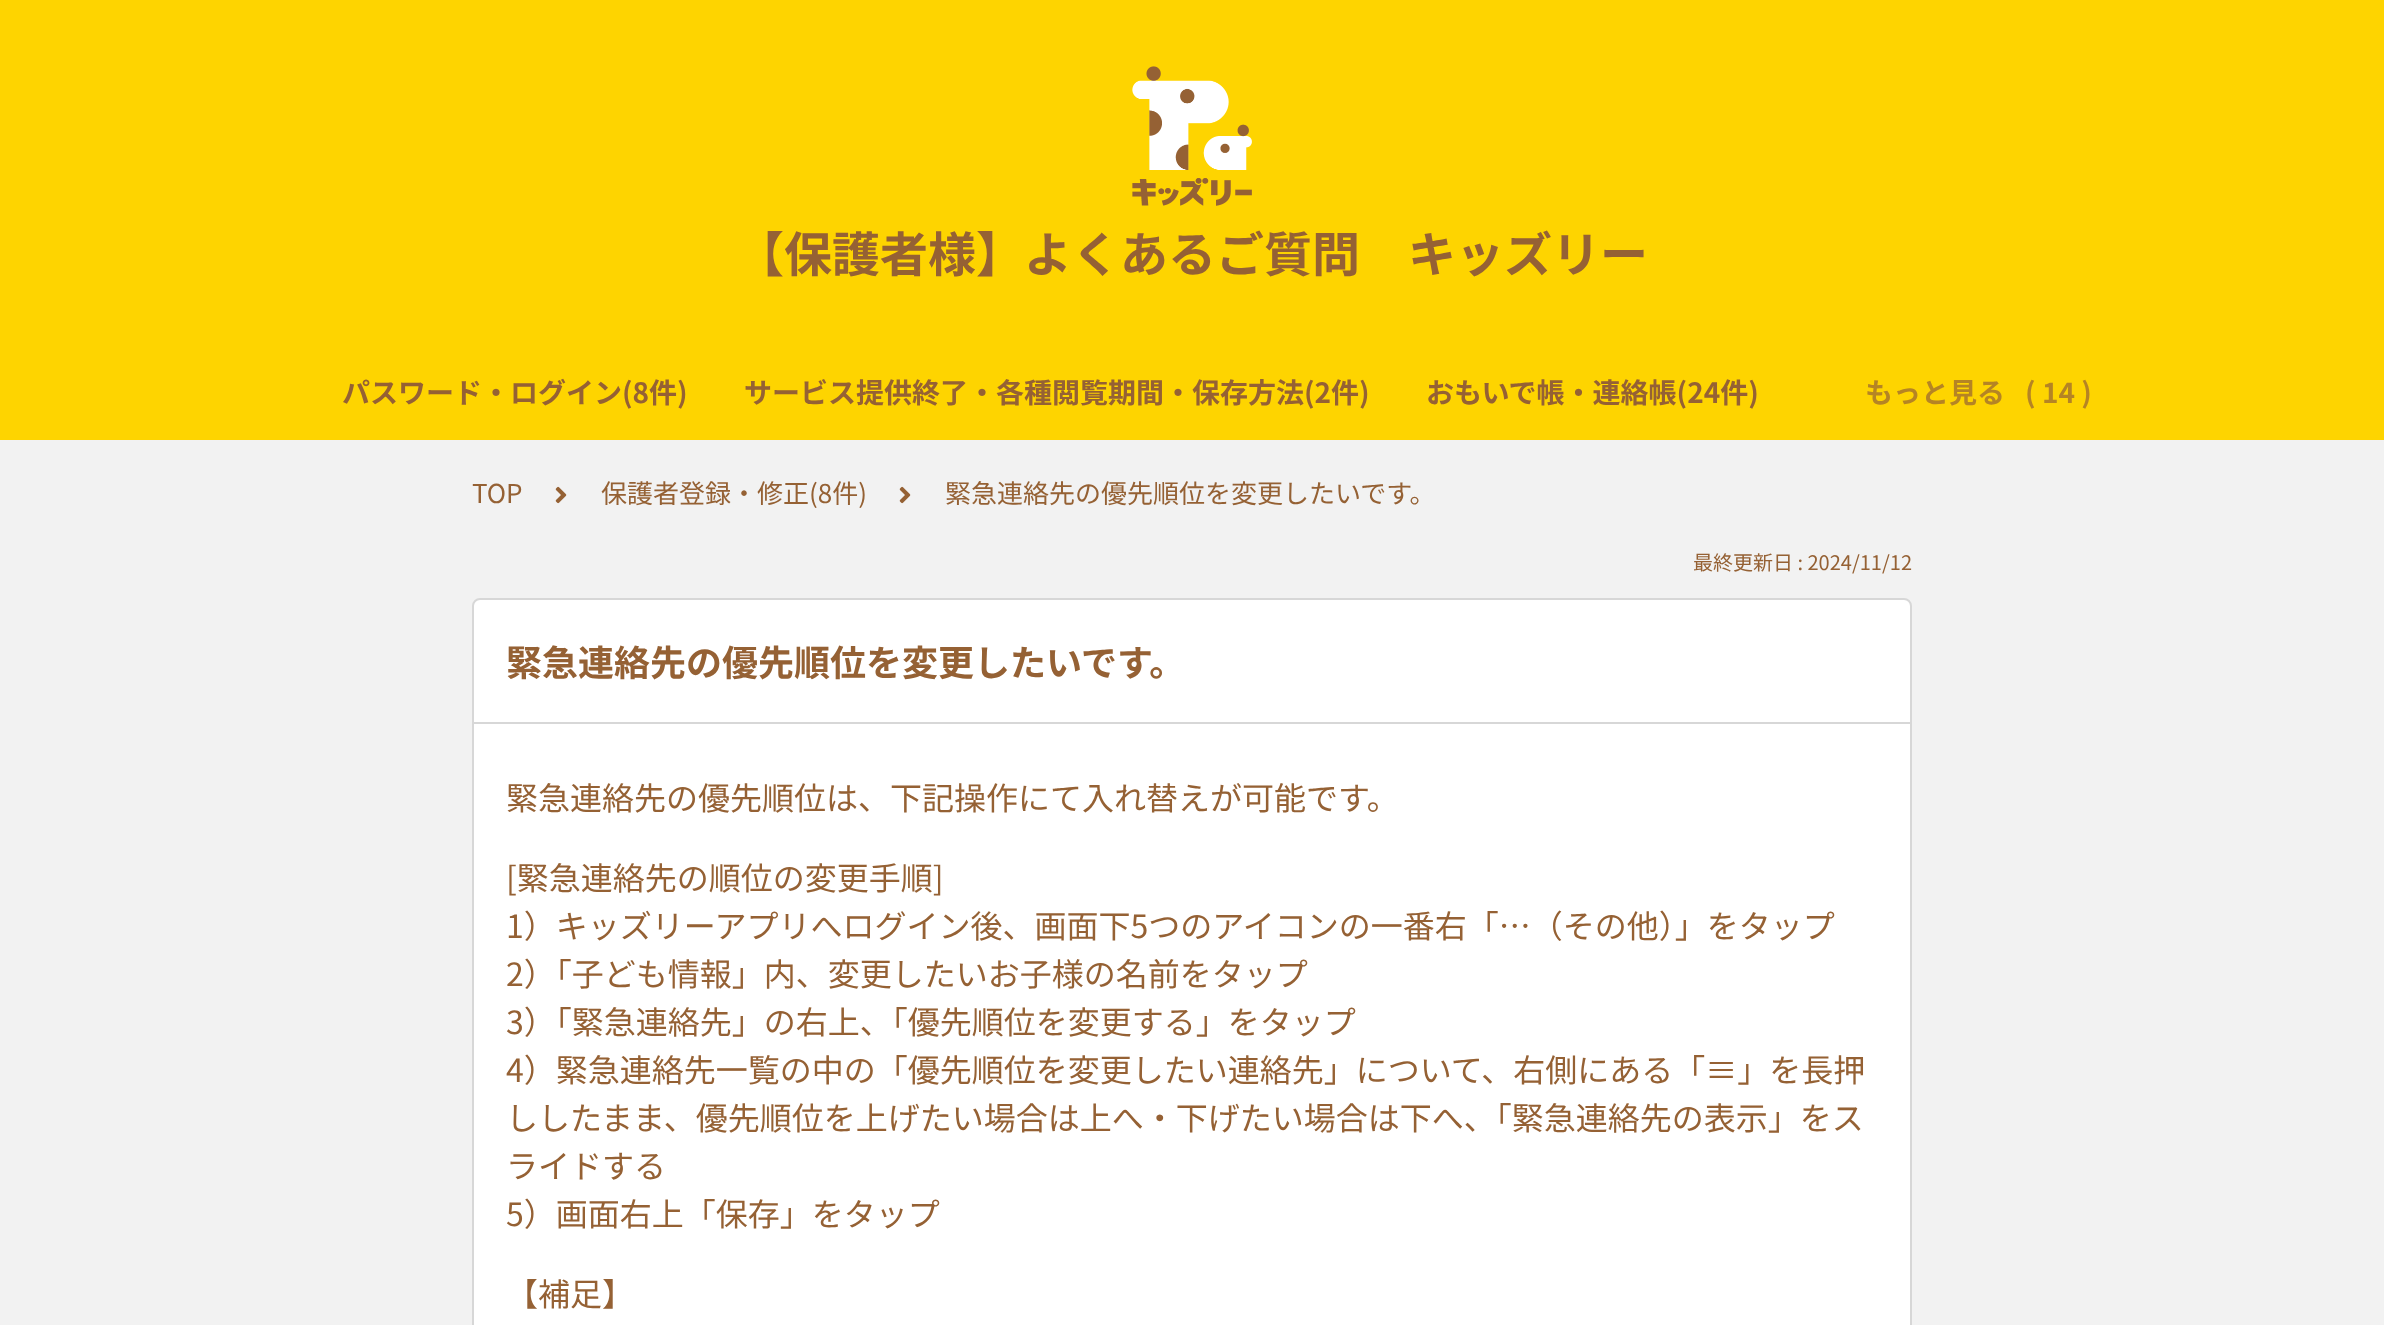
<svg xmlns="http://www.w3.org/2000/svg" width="2384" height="1325">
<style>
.a{font:bold 48px Noto Sans JP;fill:#956134}
.b{font:bold 28px Noto Sans JP;fill:#956134}
.c{font:bold 28px Noto Sans JP;fill:#b58424}
.d{font:26px Noto Sans JP;fill:#956134}
.e{font:20px Noto Sans JP;fill:#956134}
.f{font:bold 36px Noto Sans JP;fill:#956134}
.g{font:32px Noto Sans JP;fill:#956134}
</style>
<rect width="100%" height="100%" fill="#f2f2f2"/>
<path fill="#fed400" d="M0 0h2384v440H0z"/>
<image href="1.png" x="1132" y="66" width="120" height="140"/>
<image href="2.png" x="555" y="486" width="12" height="18"/>
<image href="2.png" x="899" y="486" width="12" height="18"/>
<rect fill="#fff" stroke="#d7d7d7" stroke-width="2" x="473" y="599" width="1438" height="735" rx="7"/>
<path fill="#d7d7d7" d="M474 722h1436v2H474z"/>
<text class="a" x="736" y="272">【保護者様】よくあるご質問　キッズリー</text>
<text class="b" x="342" y="403">パスワード・ログイン(8件)</text>
<text class="b" x="744" y="403">サービス提供終了・各種閲覧期間・保存方法(2件)</text>
<text class="b" x="1426" y="403">おもいで帳・連絡帳(24件)</text>
<text class="c" x="1865" y="403">もっと見る</text>
<text class="c" x="2025" y="403">( 14 )</text>
<text class="d" x="472" y="503">TOP</text>
<text class="d" x="601" y="503">保護者登録・修正(8件)</text>
<text class="d" x="945" y="503">緊急連絡先の優先順位を変更したいです。</text>
<text class="e" x="1693" y="570">最終更新日 : 2024/11/12</text>
<text class="f" x="506" y="676">緊急連絡先の優先順位を変更したいです。</text>
<text class="g" x="506" y="810">緊急連絡先の優先順位は、下記操作にて入れ替えが可能です。</text>
<text class="g" x="506" y="890">[緊急連絡先の順位の変更手順]</text>
<text class="g" x="506" y="938">1）キッズリーアプリへログイン後、画面下5つのアイコンの一番右「…（その他）」をタップ</text>
<text class="g" x="506" y="986">2）「子ども情報」内、変更したいお子様の名前をタップ</text>
<text class="g" x="506" y="1034">3）「緊急連絡先」の右上、「優先順位を変更する」をタップ</text>
<text class="g" x="506" y="1082">4）緊急連絡先一覧の中の「優先順位を変更したい連絡先」について、右側にある「≡」を長押</text>
<text class="g" x="506" y="1130">ししたまま、優先順位を上げたい場合は上へ・下げたい場合は下へ、「緊急連絡先の表示」をス</text>
<text class="g" x="506" y="1178">ライドする</text>
<text class="g" x="506" y="1226">5）画面右上「保存」をタップ</text>
<text class="g" x="506" y="1306">【補足】</text>
</svg>
